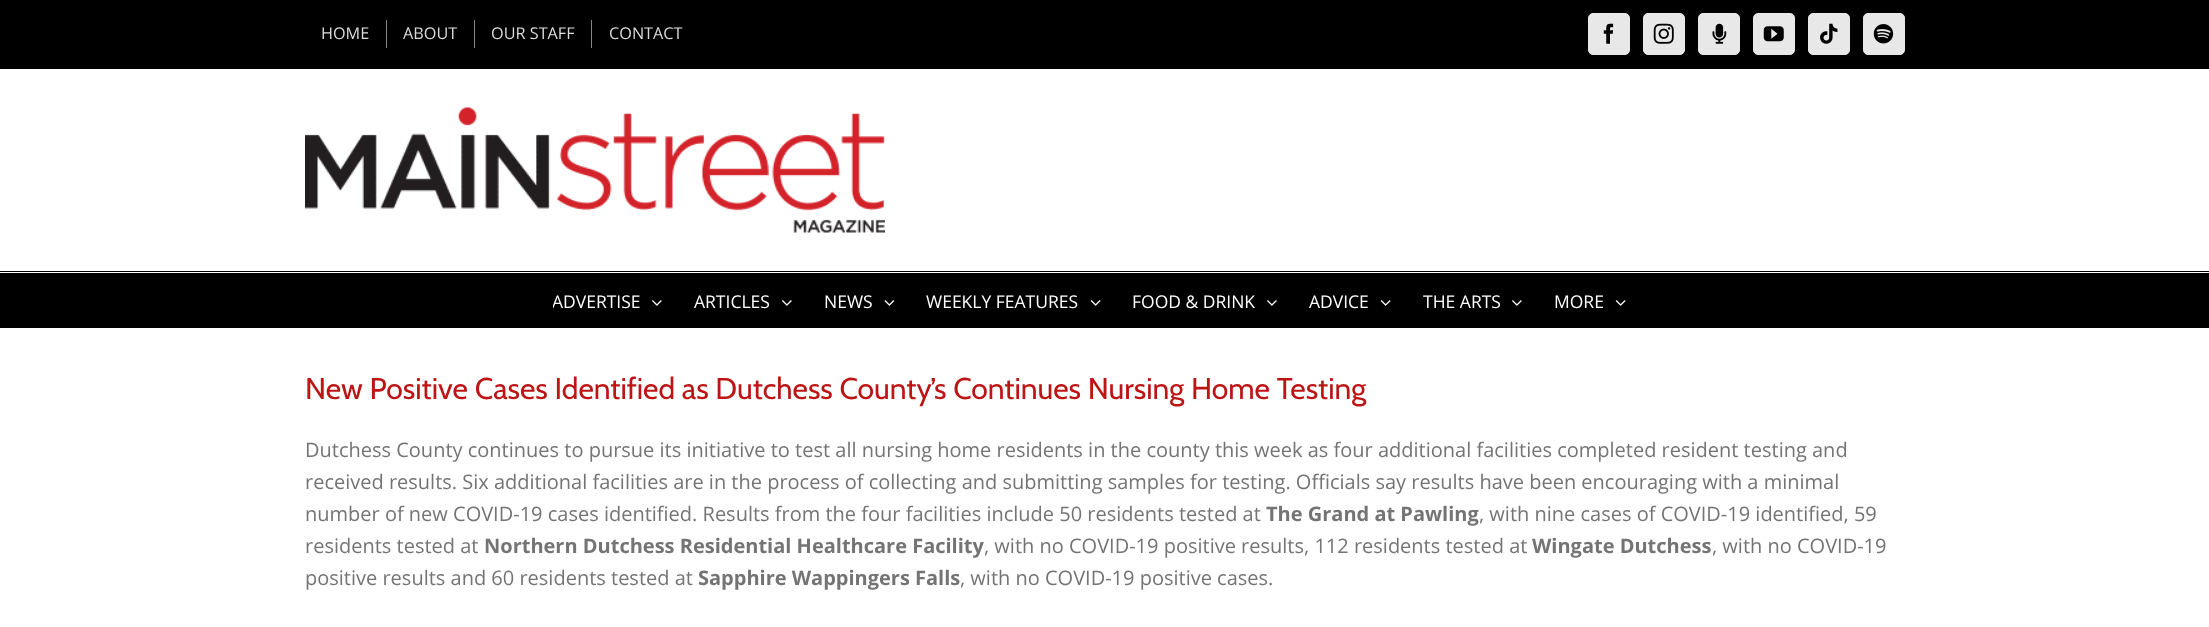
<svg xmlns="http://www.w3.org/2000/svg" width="2209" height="627">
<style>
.a{font:16.25px Open Sans;fill:#dbdbdb}
.b{font:17.5px Open Sans;fill:#fff}
.c{font:30px Cabin;fill:#bd1515}
.d{font:20px Open Sans;fill:#747474}
.e{font:bold 20px Open Sans;fill:#747474}
</style>
<defs>
<clipPath id="clip1"><path d="M553 273h141v53H553z"/></clipPath>
</defs>
<rect width="100%" height="100%" fill="#fff"/>
<path fill="#000" d="M0 0h2209v69H0z"/>
<path fill="#848484" d="M386 20h1v28H386z"/>
<path fill="#848484" d="M474 20h1v28H474z"/>
<path fill="#848484" d="M591 20h1v28H591z"/>
<rect fill="#e8e8e8" stroke="#e8e8e8" x="1588.5" y="13.5" width="41" height="41" rx="4.5"/>
<image href="1.png" x="1603" y="23" width="11" height="21"/>
<rect fill="#e8e8e8" stroke="#e8e8e8" x="1643.5" y="13.5" width="41" height="41" rx="4.5"/>
<image href="2.png" x="1653" y="23" width="21" height="21"/>
<rect fill="#e8e8e8" stroke="#e8e8e8" x="1698.5" y="13.5" width="41" height="41" rx="4.5"/>
<image href="3.png" x="1712" y="23" width="15" height="21"/>
<rect fill="#e8e8e8" stroke="#e8e8e8" x="1753.5" y="13.5" width="41" height="41" rx="4.5"/>
<image href="4.png" x="1763" y="26" width="21" height="16"/>
<rect fill="#e8e8e8" stroke="#e8e8e8" x="1808.5" y="13.5" width="41" height="41" rx="4.5"/>
<image href="5.png" x="1820" y="23" width="18" height="21"/>
<rect fill="#e8e8e8" stroke="#e8e8e8" x="1863.5" y="13.5" width="41" height="41" rx="4.5"/>
<image href="6.png" x="1873" y="24" width="21" height="20"/>
<path fill="#000" d="M0 271h2209v1H0z"/>
<image href="7.png" x="305" y="107" width="580" height="126"/>
<path fill="#000" d="M0 273h2209v55H0z"/>
<image href="8.png" x="652" y="300" width="10" height="6"/>
<image href="8.png" x="782" y="300" width="10" height="6"/>
<image href="9.png" x="884" y="300" width="11" height="6"/>
<image href="10.png" x="1090" y="300" width="11" height="6"/>
<image href="8.png" x="1267" y="300" width="10" height="6"/>
<image href="10.png" x="1380" y="300" width="11" height="6"/>
<image href="8.png" x="1512" y="300" width="10" height="6"/>
<image href="10.png" x="1615" y="300" width="11" height="6"/>
<text class="a" x="321" y="39">HOME</text>
<text class="a" x="403" y="39">ABOUT</text>
<text class="a" x="491" y="39">OUR STAFF</text>
<text class="a" x="609" y="39">CONTACT</text>
<g clip-path="url(#clip1)">
<text class="b" x="552" y="308">ADVERTISE</text>
</g>
<text class="b" x="694" y="308">ARTICLES</text>
<text class="b" x="824" y="308">NEWS</text>
<text class="b" x="926" y="308">WEEKLY FEATURES</text>
<text class="b" x="1132" y="308">FOOD &amp; DRINK</text>
<text class="b" x="1309" y="308">ADVICE</text>
<text class="b" x="1423" y="308">THE ARTS</text>
<text class="b" x="1554" y="308">MORE</text>
<text class="c" x="305" y="399">New Positive Cases Identified as Dutchess County’s Continues Nursing Home Testing</text>
<text class="d" x="305" y="457">Dutchess County continues to pursue its initiative to test all nursing home residents in the county this week as four additional facilities completed resident testing and</text>
<text class="d" x="305" y="489">received results. Six additional facilities are in the process of collecting and submitting samples for testing. Officials say results have been encouraging with a minimal</text>
<text class="d" x="305" y="521">number of new COVID-19 cases identified. Results from the four facilities include 50 residents tested at</text>
<text class="e" x="1266" y="521">The Grand at Pawling</text>
<text class="d" x="1479" y="521">, with nine cases of COVID-19 identified, 59</text>
<text class="d" x="305" y="553">residents tested at</text>
<text class="e" x="484" y="553">Northern Dutchess Residential Healthcare Facility</text>
<text class="d" x="984" y="553">, with no COVID-19 positive results, 112 residents tested at</text>
<text class="e" x="1532" y="553">Wingate Dutchess</text>
<text class="d" x="1712" y="553">, with no COVID-19</text>
<text class="d" x="305" y="585">positive results and 60 residents tested at</text>
<text class="e" x="698" y="585">Sapphire Wappingers Falls</text>
<text class="d" x="960" y="585">, with no COVID-19 positive cases.</text>
</svg>
